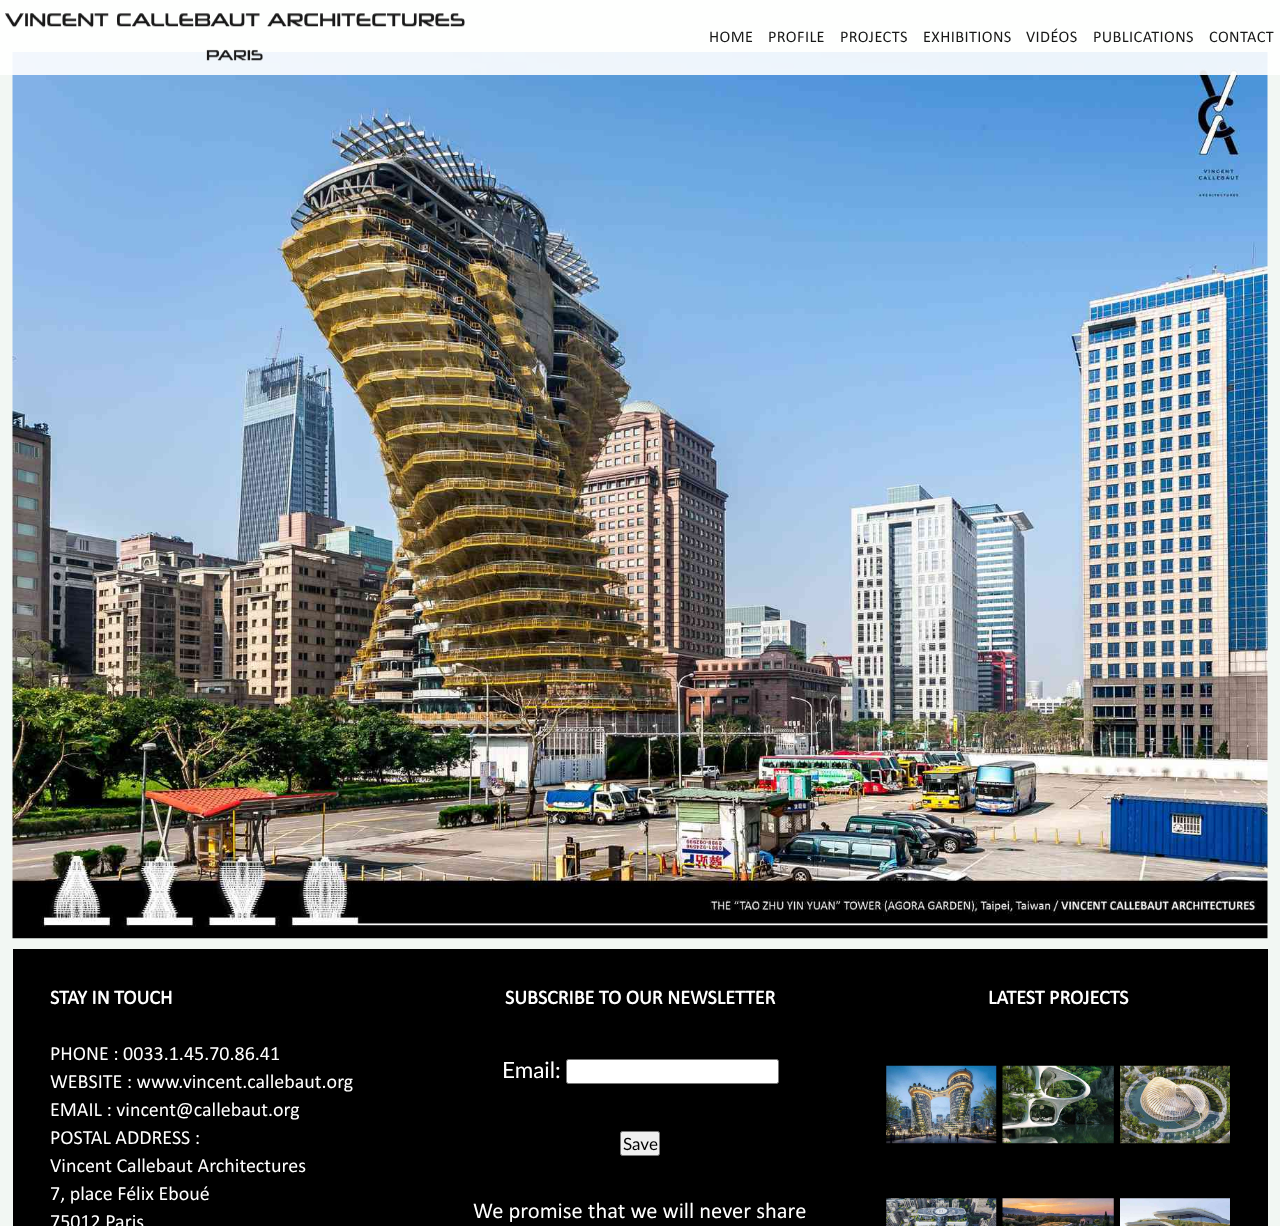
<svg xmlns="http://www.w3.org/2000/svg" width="1280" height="1226">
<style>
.a{font:16.25px Calibri;letter-spacing:0.4px;fill:#181918}
.b{font:bold 20px Calibri;fill:#fff}
.c{font:20px Calibri;fill:#fff}
.d{font:22.5px Lato;fill:#fff}
.e{font:17px Lato;fill:#000}
.f{font:22.5px Calibri;fill:#fff}
</style>
<rect width="100%" height="100%" fill="#f2f7f3"/>
<image href="2.png" x="12" y="52" width="1256" height="887"/>
<path fill="#ffffffe6" d="M0 0h1280v75H0z"/>
<image href="1.png" x="5" y="13" width="460" height="48"/>
<path fill="#000" d="M13 949h1255v277H13z"/>
<rect fill="#fff" stroke="#767676" x="566.5" y="1059.5" width="212" height="24" rx="2"/>
<rect fill="#efefef" stroke="#767676" x="620.5" y="1131.5" width="39" height="24" rx="2"/>
<image href="3.png" x="886" y="1065" width="111" height="79"/>
<image href="4.png" x="1002" y="1065" width="112" height="79"/>
<image href="5.png" x="1120" y="1065" width="110" height="79"/>
<image href="6.png" x="886" y="1198" width="111" height="28"/>
<image href="7.png" x="1002" y="1198" width="112" height="28"/>
<image href="8.png" x="1120" y="1198" width="110" height="28"/>
<text class="a" x="709" y="42">HOME</text>
<text class="a" x="768" y="42">PROFILE</text>
<text class="a" x="840" y="42">PROJECTS</text>
<text class="a" x="923" y="42">EXHIBITIONS</text>
<text class="a" x="1026" y="42">VIDÉOS</text>
<text class="a" x="1093" y="42">PUBLICATIONS</text>
<text class="a" x="1209" y="42">CONTACT</text>
<text class="b" x="50" y="1004">STAY IN TOUCH</text>
<text class="c" x="50" y="1060">PHONE : 0033.1.45.70.86.41</text>
<text class="c" x="50" y="1088">WEBSITE : www.vincent.callebaut.org</text>
<text class="c" x="50" y="1116">EMAIL : vincent@callebaut.org</text>
<text class="c" x="50" y="1144">POSTAL ADDRESS :</text>
<text class="c" x="50" y="1172">Vincent Callebaut Architectures</text>
<text class="c" x="50" y="1200">7, place Félix Eboué</text>
<text class="c" x="50" y="1228">75012 Paris</text>
<text class="b" x="505" y="1004">SUBSCRIBE TO OUR NEWSLETTER</text>
<text class="d" x="502" y="1078">Email:</text>
<text class="e" x="623" y="1150">Save</text>
<text class="f" x="473" y="1218">We promise that we will never share</text>
<text class="b" x="988" y="1004">LATEST PROJECTS</text>
</svg>
